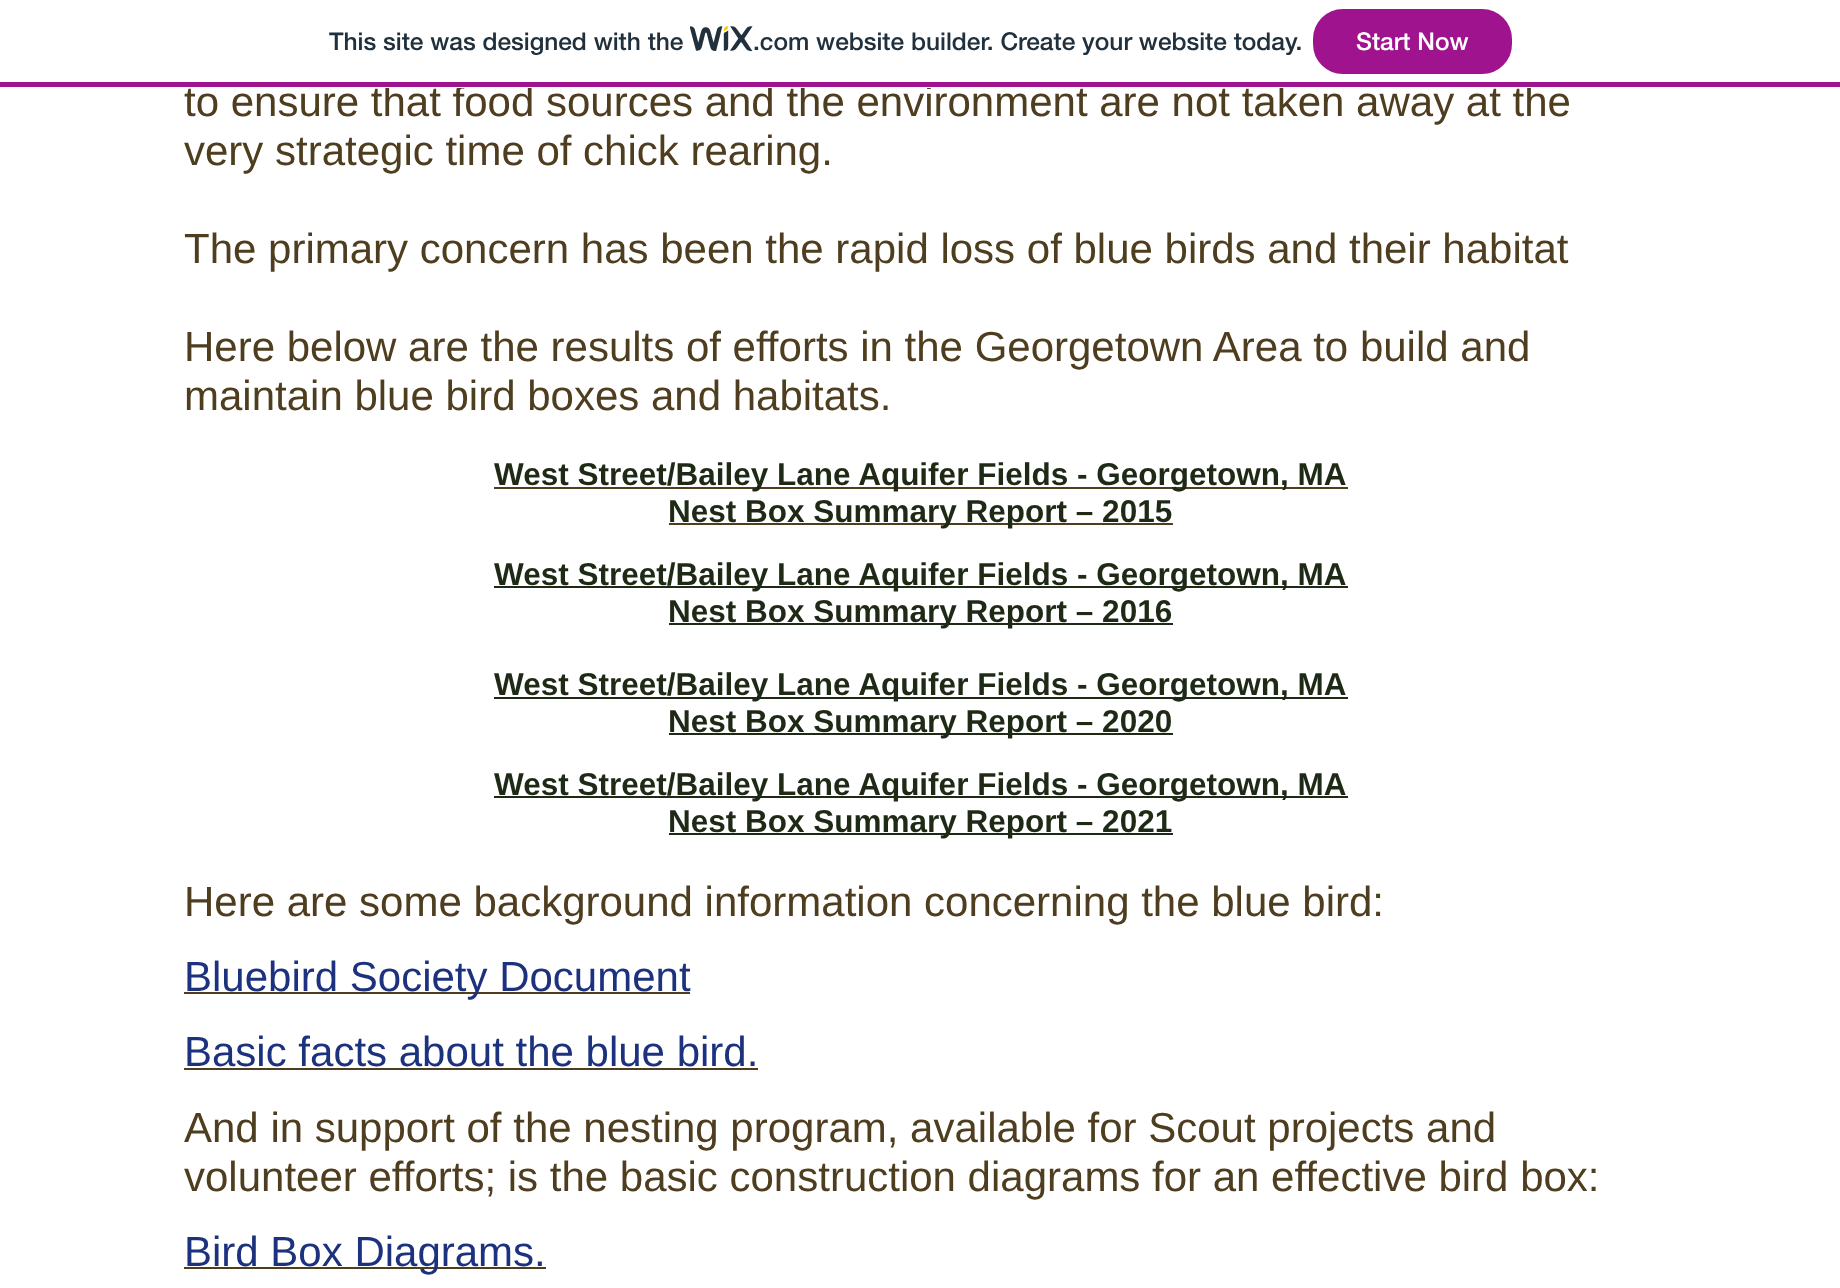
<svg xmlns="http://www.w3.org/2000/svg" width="1840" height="1288">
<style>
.a{font:500 24.5px 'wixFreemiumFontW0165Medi';fill:#20303c}
.b{font:500 24.5px 'wixFreemiumFontW0165Medi';fill:#fff}
.c{font:42px Liberation Sans;fill:#4e3d1e}
.d{font:bold 31.5px Liberation Sans;fill:#1e2a16}
.e{font:42px Liberation Sans;fill:#1c327f}
</style>
<rect width="100%" height="100%" fill="#fff"/>
<image href="1.png" x="690" y="26" width="63" height="26"/>
<rect fill="#a0138e" stroke="#a0138e" stroke-width="2" x="1314" y="10" width="197" height="63" rx="29"/>
<path fill="#4e3d1e" d="M494 487h854v2H494z"/>
<path fill="#4e3d1e" d="M669 523h504v2H669z"/>
<path fill="#1e2a16" d="M494 586h854v2H494z"/>
<path fill="#1e2a16" d="M669 623h504v2H669z"/>
<path fill="#1e2a16" d="M494 697h854v2H494z"/>
<path fill="#1e2a16" d="M669 733h504v2H669z"/>
<path fill="#1e2a16" d="M494 796h854v2H494z"/>
<path fill="#1e2a16" d="M669 833h504v2H669z"/>
<path fill="#4e3d1e" d="M184 992h506v2H184z"/>
<path fill="#4e3d1e" d="M184 1068h574v2H184z"/>
<path fill="#4e3d1e" d="M184 1267h362v2H184z"/>
<text class="a" x="329" y="50">This site was designed with the</text>
<text class="a" x="753" y="50">.com website builder. Create your website today.</text>
<text class="b" x="1356" y="50">Start Now</text>
<text class="c" x="184" y="116">to ensure that food sources and the environment are not taken away at the</text>
<path fill="#fff" d="M385 85h1146v3H385z"/>
<path fill="#a0138e" d="M0 82h1840v5H0z"/>
<text class="c" x="184" y="165">very strategic time of chick rearing.</text>
<text class="c" x="184" y="263">The primary concern has been the rapid loss of blue birds and their habitat</text>
<text class="c" x="184" y="361">Here below are the results of efforts in the Georgetown Area to build and</text>
<text class="c" x="184" y="410">maintain blue bird boxes and habitats.</text>
<text class="d" x="494" y="485">West Street/Bailey Lane Aquifer Fields - Georgetown, MA</text>
<text class="d" x="668" y="522">Nest Box Summary Report – 2015</text>
<text class="d" x="494" y="585">West Street/Bailey Lane Aquifer Fields - Georgetown, MA</text>
<text class="d" x="668" y="622">Nest Box Summary Report – 2016</text>
<text class="d" x="494" y="695">West Street/Bailey Lane Aquifer Fields - Georgetown, MA</text>
<text class="d" x="668" y="732">Nest Box Summary Report – 2020</text>
<text class="d" x="494" y="795">West Street/Bailey Lane Aquifer Fields - Georgetown, MA</text>
<text class="d" x="668" y="832">Nest Box Summary Report – 2021</text>
<text class="c" x="184" y="916">Here are some background information concerning the blue bird:</text>
<text class="e" x="184" y="991">Bluebird Society Document</text>
<text class="e" x="184" y="1066">Basic facts about the blue bird.</text>
<text class="c" x="184" y="1142">And in support of the nesting program, available for Scout projects and</text>
<text class="c" x="184" y="1191">volunteer efforts; is the basic construction diagrams for an effective bird box:</text>
<text class="e" x="184" y="1266">Bird Box Diagrams.</text>
</svg>
